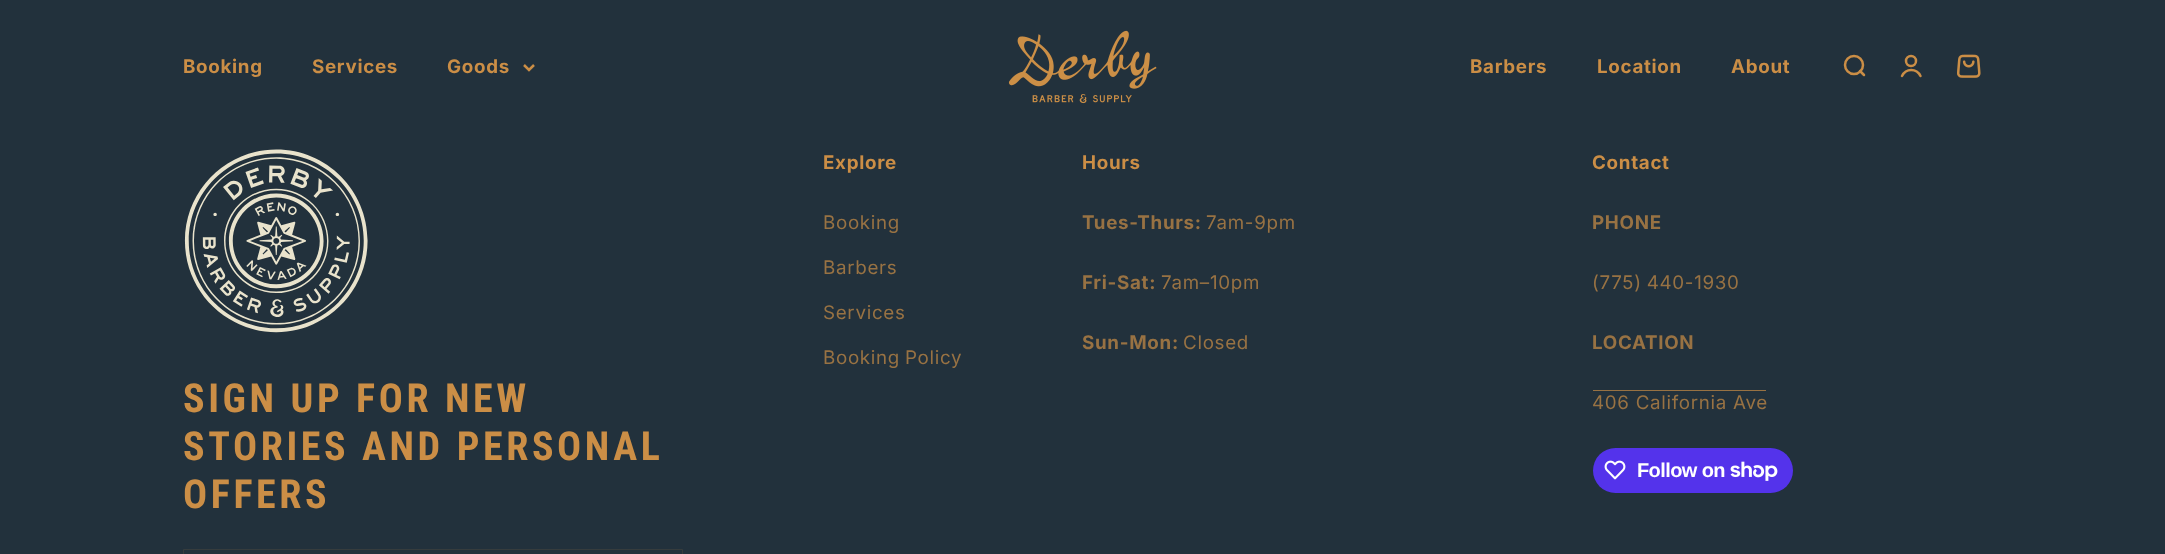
<svg xmlns="http://www.w3.org/2000/svg" width="2165" height="554">
<style>
.a{font:bold 18.75px Inter;letter-spacing:0.7px;fill:#cb8e46}
.b{font:bold 40px Roboto Condensed;letter-spacing:3.6px;fill:#cb8e46}
.c{font:18.75px Inter;letter-spacing:0.7px;fill:#987243}
.d{font:bold 18.75px Inter;letter-spacing:0.7px;fill:#987243}
.e{font:bold 20px Liberation Sans;letter-spacing:-0.6px;fill:#fff}
</style>
<rect width="100%" height="100%" fill="#22313c"/>
<path fill="none" stroke="#cb8e46" stroke-width="2.5" d="M524 65l5 5l5-5"/>
<image href="1.png" x="1008" y="30" width="149" height="74"/>
<circle fill="none" stroke="#cb8e46" stroke-width="2.5" cx="1854" cy="65" r="9"/>
<path fill="none" stroke="#cb8e46" stroke-width="2.5" stroke-linecap="round" stroke-linejoin="round" d="M1860 71l4 4"/>
<circle fill="none" stroke="#cb8e46" stroke-width="2.5" cx="1911" cy="61" r="5"/>
<path fill="none" stroke="#cb8e46" stroke-width="2.5" stroke-linecap="round" d="M1902 76c4-8 14.5-8 18.5 0"/>
<image href="2.png" x="1957" y="54" width="24" height="24"/>
<image href="3.png" x="184" y="149" width="184" height="184"/>
<path fill="none" stroke="#363c3d" d="M183.5 549.5h499v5H183.5z"/>
<path fill="#987243" d="M1593 390h173v1H1593z"/>
<rect fill="#5433eb" x="1593" y="448" width="200" height="45" rx="22.5"/>
<image href="4.png" x="1604" y="460" width="22" height="20"/>
<image href="5.png" x="1730" y="461" width="48" height="20"/>
<text class="a" x="183" y="73">Booking</text>
<text class="a" x="312" y="73">Services</text>
<text class="a" x="447" y="73">Goods</text>
<text class="a" x="1470" y="73">Barbers</text>
<text class="a" x="1597" y="73">Location</text>
<text class="a" x="1731" y="73">About</text>
<text class="b" x="183" y="412">SIGN UP FOR NEW</text>
<text class="b" x="183" y="460">STORIES AND PERSONAL</text>
<text class="b" x="183" y="508">OFFERS</text>
<text class="a" x="823" y="169">Explore</text>
<text class="c" x="823" y="229">Booking</text>
<text class="c" x="823" y="274">Barbers</text>
<text class="c" x="823" y="319">Services</text>
<text class="c" x="823" y="364" word-spacing="-1">Booking Policy</text>
<text class="a" x="1082" y="169">Hours</text>
<text class="d" x="1082" y="229">Tues-Thurs:</text>
<text class="c" x="1206" y="229">7am-9pm</text>
<text class="d" x="1082" y="289">Fri-Sat:</text>
<text class="c" x="1161" y="289">7am–10pm</text>
<text class="d" x="1082" y="349">Sun-Mon:</text>
<text class="c" x="1183" y="349">Closed</text>
<text class="a" x="1592" y="169">Contact</text>
<text class="d" x="1592" y="229">PHONE</text>
<text class="c" x="1592" y="289" word-spacing="-1">(775) 440-1930</text>
<text class="d" x="1592" y="349">LOCATION</text>
<text class="c" x="1592" y="409">406 California Ave</text>
<text class="e" x="1637" y="477">Follow on</text>
</svg>
